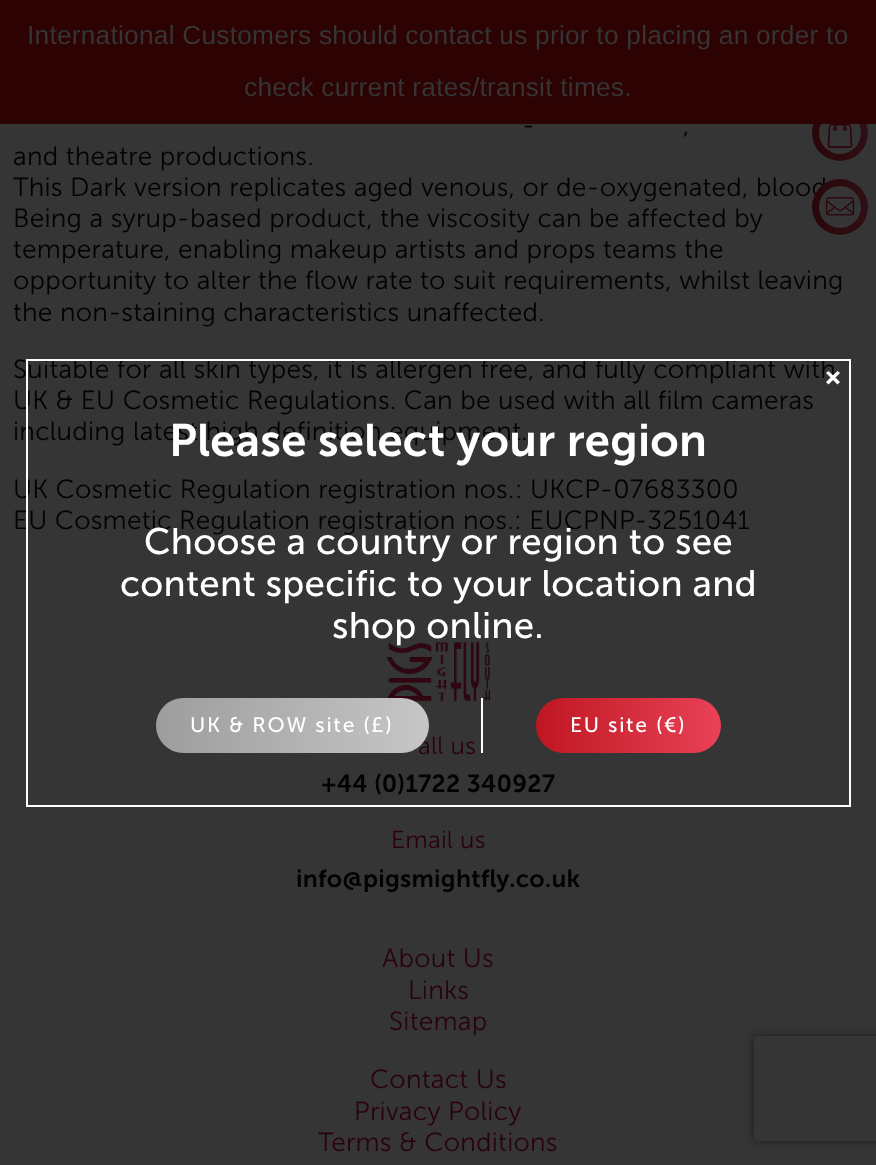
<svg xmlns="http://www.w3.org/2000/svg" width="876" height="1165">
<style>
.a{font:26.25px Liberation Sans;letter-spacing:0.25px;fill:#353535}
.b{font:300 26.25px 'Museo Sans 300';letter-spacing:0.25px;fill:#020203}
.c{font:600 45.5px 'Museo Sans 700';letter-spacing:0.25px;fill:#fff}
.d{font:36.75px 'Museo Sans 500';letter-spacing:0.25px;fill:#fff}
.e{font:21px 'Museo Sans 500';letter-spacing:1.75px;fill:#fff}
.f{font:300 24.5px 'Museo Sans 300';letter-spacing:0.25px;fill:#2a020d}
.g{font:600 24.5px 'Museo Sans 700';letter-spacing:0.25px;fill:#020203}
.h{font:300 26.25px 'Museo Sans 300';letter-spacing:0.25px;fill:#2a020d}
</style>
<defs>
<linearGradient id="g1" gradientUnits="userSpaceOnUse" x1="812" y1="133" x2="868" y2="133"><stop offset="0" stop-color="#280609"/><stop offset="1" stop-color="#300f14"/></linearGradient>
<clipPath id="clip1"><path d="M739 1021h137v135h-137zm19 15h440c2 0 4 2 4 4v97c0 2-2 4-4 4h-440c-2 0-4-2-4-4v-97c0-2 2-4 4-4z" clip-rule="evenodd"/></clipPath>
<linearGradient id="g2" gradientUnits="userSpaceOnUse" x1="812" y1="207" x2="868" y2="207"><stop offset="0" stop-color="#280609"/><stop offset="1" stop-color="#300f14"/></linearGradient>
<linearGradient id="g3" gradientUnits="userSpaceOnUse" x1="536" y1="725" x2="721" y2="725"><stop offset="0" stop-color="#bf1721"/><stop offset="1" stop-color="#e94257"/></linearGradient>
<linearGradient id="g4" gradientUnits="userSpaceOnUse" x1="156" y1="725" x2="429" y2="725"><stop offset="0" stop-color="#9d9d9c"/><stop offset="1" stop-color="#c6c6c6"/></linearGradient>
</defs>
<rect width="100%" height="100%" fill="#353535"/>
<circle fill="url(#g1)" cx="840" cy="133" r="28"/>
<circle fill="#353535" cx="840" cy="133" r="21"/>
<path fill="#2d0202" d="M0 0h876v124H0z"/>
<image href="1.png" x="827" y="124" width="26" height="24"/>
<image href="3.png" x="386" y="642" width="104" height="60"/>
<g clip-path="url(#clip1)">
<rect fill="#1b1b1c" filter="blur(4.5px)" x="754" y="1036" width="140" height="105" rx="4"/>
</g>
<text class="a" x="27" y="44">International Customers should contact us prior to placing an order to</text>
<text class="a" x="244" y="96">check current rates/transit times.</text>
<text class="b" x="522" y="134">-</text>
<text class="b" x="683" y="134">,</text>
<text class="b" x="13" y="165">and theatre productions.</text>
<text class="b" x="13" y="196">This Dark version replicates aged venous, or de-oxygenated, blood</text>
<circle fill="url(#g2)" cx="840" cy="207" r="28"/>
<circle fill="#353535" cx="840" cy="207" r="21"/>
<image href="2.png" x="825" y="197" width="30" height="19"/>
<text class="b" x="13" y="227">Being a syrup-based product, the viscosity can be affected by</text>
<text class="b" x="13" y="258">temperature, enabling makeup artists and props teams the</text>
<text class="b" x="13" y="289">opportunity to alter the flow rate to suit requirements, whilst leaving</text>
<text class="b" x="13" y="321">the non-staining characteristics unaffected.</text>
<text class="b" x="13" y="378">Suitable for all skin types, it is allergen free, and fully compliant with</text>
<text class="b" x="13" y="409">UK &amp; EU Cosmetic Regulations. Can be used with all film cameras</text>
<text class="b" x="13" y="440">including latest high definition equipment.</text>
<text class="b" x="13" y="498">UK Cosmetic Regulation registration nos.: UKCP</text>
<text class="b" x="600" y="498">-07683300</text>
<text class="b" x="13" y="529">EU Cosmetic Regulation registration nos.: EUCPNP-3251041</text>
<path fill="none" stroke="#fff" stroke-width="2" d="M27 360h823v446H27z"/>
<path fill="#fff" d="M828.5 371l11.5 11l-2.5 2.5l-11.5-11.5z"/>
<path fill="#fff" d="M826 382l11.5-11l2.5 2l-11.5 11.5z"/>
<text class="c" x="169" y="456">Please select your region</text>
<text class="d" x="144" y="554">Choose a country or region to see</text>
<text class="d" x="120" y="596">content specific to your location and</text>
<text class="d" x="332" y="638">shop online.</text>
<path fill="#fff" d="M481 698h2v55H481z"/>
<rect fill="url(#g3)" x="536" y="698" width="185" height="55" rx="27.5"/>
<text class="e" x="570" y="732">EU site (€)</text>
<text class="f" x="418" y="754">all us</text>
<rect fill="url(#g4)" x="156" y="698" width="273" height="55" rx="27.5"/>
<text class="e" x="190" y="732">UK &amp; ROW site (£)</text>
<text class="g" x="321" y="792">+44 (0)1722 340927</text>
<text class="f" x="391" y="848">Email us</text>
<text class="g" x="296" y="887">info@pigsmightfly.co.uk</text>
<text class="h" x="382" y="967">About Us</text>
<text class="h" x="408" y="999">Links</text>
<text class="h" x="389" y="1030">Sitemap</text>
<text class="h" x="370" y="1088">Contact Us</text>
<text class="h" x="354" y="1120">Privacy Policy</text>
<text class="h" x="318" y="1151">Terms &amp; Conditions</text>
</svg>
